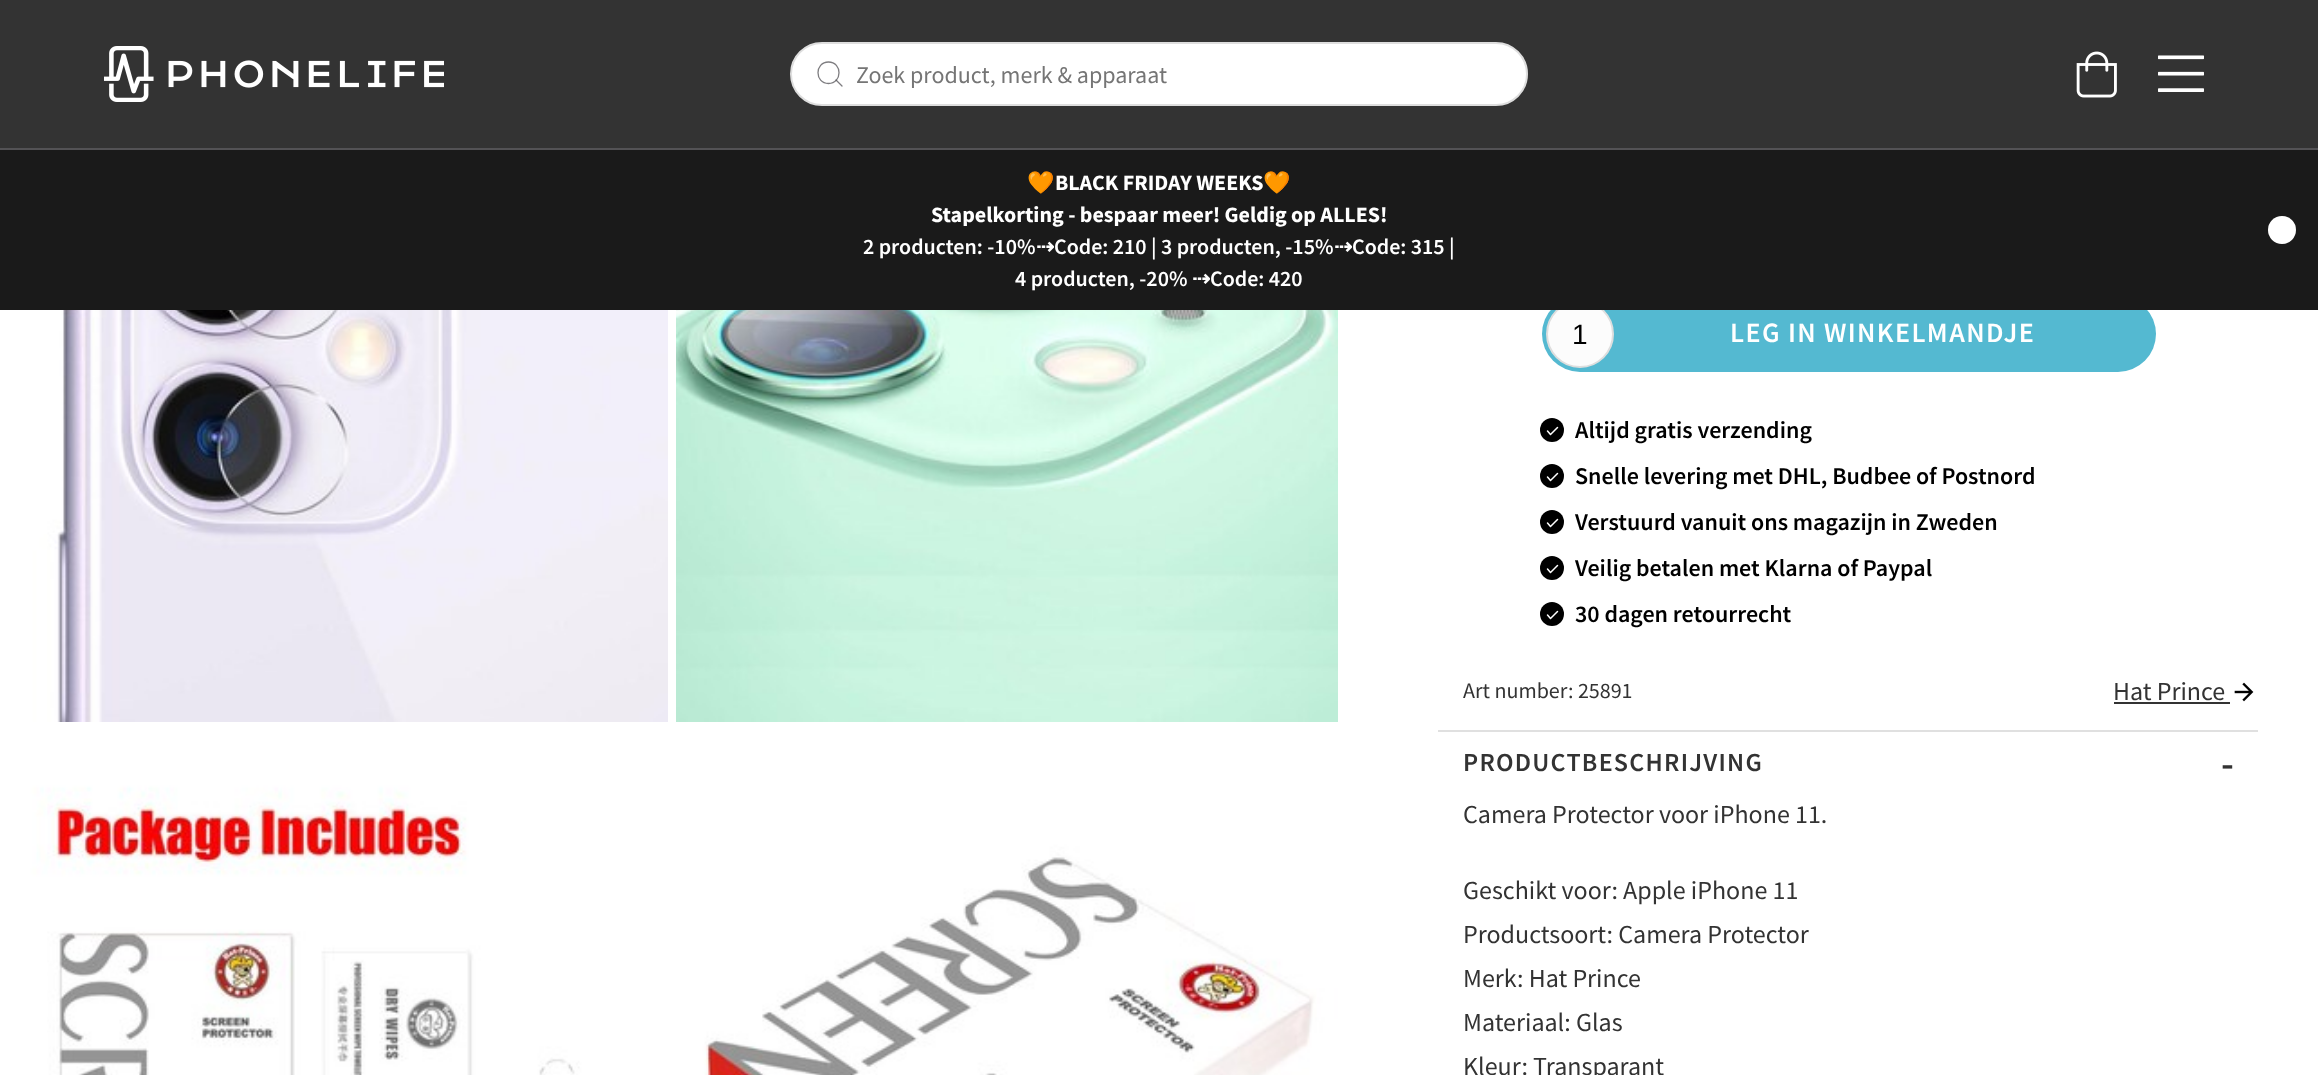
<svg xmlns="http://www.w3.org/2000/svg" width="2318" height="1075">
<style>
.a{font:24px Source Sans Pro;fill:#757575}
.b{font:bold 22px Noto Color Emoji;fill:#fff}
.c{font:bold 22px Source Sans Pro;fill:#fff}
.d{font:600 22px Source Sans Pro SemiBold;fill:#fff}
.e{font:bold 22px DejaVu Sans;fill:#fff}
.f{font:28px Liberation Sans;fill:#000}
.g{font:600 28px Source Sans Pro SemiBold;letter-spacing:1.4px;fill:#fff}
.h{font:600 24px Source Sans Pro SemiBold;fill:#000}
.i{font:22px Source Sans Pro;fill:#333}
.j{font:26px Source Sans Pro;fill:#333}
.k{font:600 26px Source Sans Pro SemiBold;letter-spacing:1.25px;fill:#333}
.l{font:600 40px Source Sans Pro SemiBold;letter-spacing:1.25px;fill:#333}
</style>
<rect width="100%" height="100%" fill="#fff"/>
<path fill="#333" d="M0 0h2318v148H0z"/>
<path fill="#535255" d="M0 148h2318v2H0z"/>
<image href="1.png" x="104" y="46" width="340" height="56"/>
<rect fill="#fff" stroke="#dedede" stroke-width="2" x="791" y="43" width="736" height="62" rx="31"/>
<path fill="none" stroke="#7e7d80" stroke-width="1.3" stroke-linecap="round" stroke-linejoin="round" d="M828.5 83.5c14 0 14-21.5 0-21.5c-14 0-14 21.5 0 21.5z"/>
<path fill="none" stroke="#535255bf" stroke-width="1.3" stroke-linecap="round" stroke-linejoin="round" d="M842 86l-6-6"/>
<image href="2.png" x="2076" y="51" width="41" height="47"/>
<image href="3.png" x="2158" y="55" width="46" height="37"/>
<rect fill="#54b9d1" x="1542" y="296" width="614" height="76" rx="38"/>
<circle fill="#fcfcfc" stroke="#dedede" stroke-width="2" cx="1580" cy="334" r="33"/>
<path fill="#1a1a1a" d="M0 150h2318v160H0z"/>
<circle fill="#fff" cx="2282" cy="230" r="14"/>
<image href="4.png" x="4" y="310" width="664" height="412"/>
<image href="5.png" x="676" y="310" width="662" height="412"/>
<image href="6.png" x="4" y="730" width="664" height="345"/>
<image href="7.png" x="676" y="730" width="662" height="345"/>
<path fill="#e0e0e0" d="M1438 730h820v2H1438z"/>
<circle fill="#000" cx="1552" cy="430" r="12"/>
<path fill="none" stroke="#fff" stroke-width="1.5" stroke-linecap="round" stroke-linejoin="round" d="M1557.5 427.5l-7 7l-3-3.5"/>
<circle fill="#000" cx="1552" cy="476" r="12"/>
<path fill="none" stroke="#fff" stroke-width="1.5" stroke-linecap="round" stroke-linejoin="round" d="M1557.5 473.5l-7 7l-3-3.5"/>
<circle fill="#000" cx="1552" cy="522" r="12"/>
<path fill="none" stroke="#fff" stroke-width="1.5" stroke-linecap="round" stroke-linejoin="round" d="M1557.5 519.5l-7 7l-3-3.5"/>
<circle fill="#000" cx="1552" cy="568" r="12"/>
<path fill="none" stroke="#fff" stroke-width="1.5" stroke-linecap="round" stroke-linejoin="round" d="M1557.5 565.5l-7 7l-3-3.5"/>
<circle fill="#000" cx="1552" cy="614" r="12"/>
<path fill="none" stroke="#fff" stroke-width="1.5" stroke-linecap="round" stroke-linejoin="round" d="M1557.5 611.5l-7 7l-3-3.5"/>
<path fill="#333" d="M2114 702h116v2H2114z"/>
<image href="8.png" x="2234" y="682" width="20" height="20"/>
<text class="a" x="856" y="83">Zoek product, merk &amp; apparaat</text>
<text class="b" x="1027" y="190">🧡</text>
<text class="c" x="1055" y="190">BLACK FRIDAY WEEKS</text>
<text class="b" x="1263" y="190">🧡</text>
<text class="c" x="931" y="222">Stapelkorting - bespaar meer! Geldig op ALLES!</text>
<text class="d" x="863" y="254">2 producten: -10%</text>
<text class="e" x="1036" y="254">⇢</text>
<text class="d" x="1054" y="254">Code: 210 | 3 producten, -15%</text>
<text class="e" x="1334" y="254">⇢</text>
<text class="d" x="1352" y="254">Code: 315 |</text>
<text class="d" x="1015" y="286">4 producten, -20%</text>
<text class="e" x="1192" y="286">⇢</text>
<text class="d" x="1210" y="286">Code: 420</text>
<text class="f" x="1572" y="344">1</text>
<text class="g" x="1730" y="342">LEG IN WINKELMANDJE</text>
<text class="h" x="1575" y="438">Altijd gratis verzending</text>
<text class="h" x="1575" y="484">Snelle levering met DHL, Budbee of Postnord</text>
<text class="h" x="1575" y="530">Verstuurd vanuit ons magazijn in Zweden</text>
<text class="h" x="1575" y="576">Veilig betalen met Klarna of Paypal</text>
<text class="h" x="1575" y="622">30 dagen retourrecht</text>
<text class="i" x="1463" y="698">Art number</text>
<text class="i" x="1568" y="698">: 25891</text>
<text class="j" x="2113" y="700">Hat Prince</text>
<text class="k" x="1463" y="771">PRODUCTBESCHRIJVING</text>
<text class="l" x="2221" y="777">-</text>
<text class="j" x="1463" y="823">Camera Protector voor iPhone 11.</text>
<text class="j" x="1463" y="899">Geschikt voor: Apple iPhone 11</text>
<text class="j" x="1463" y="943">Productsoort: Camera Protector</text>
<text class="j" x="1463" y="987">Merk: Hat Prince</text>
<text class="j" x="1463" y="1031">Materiaal: Glas</text>
<text class="j" x="1463" y="1075">Kleur: Transparant</text>
</svg>
